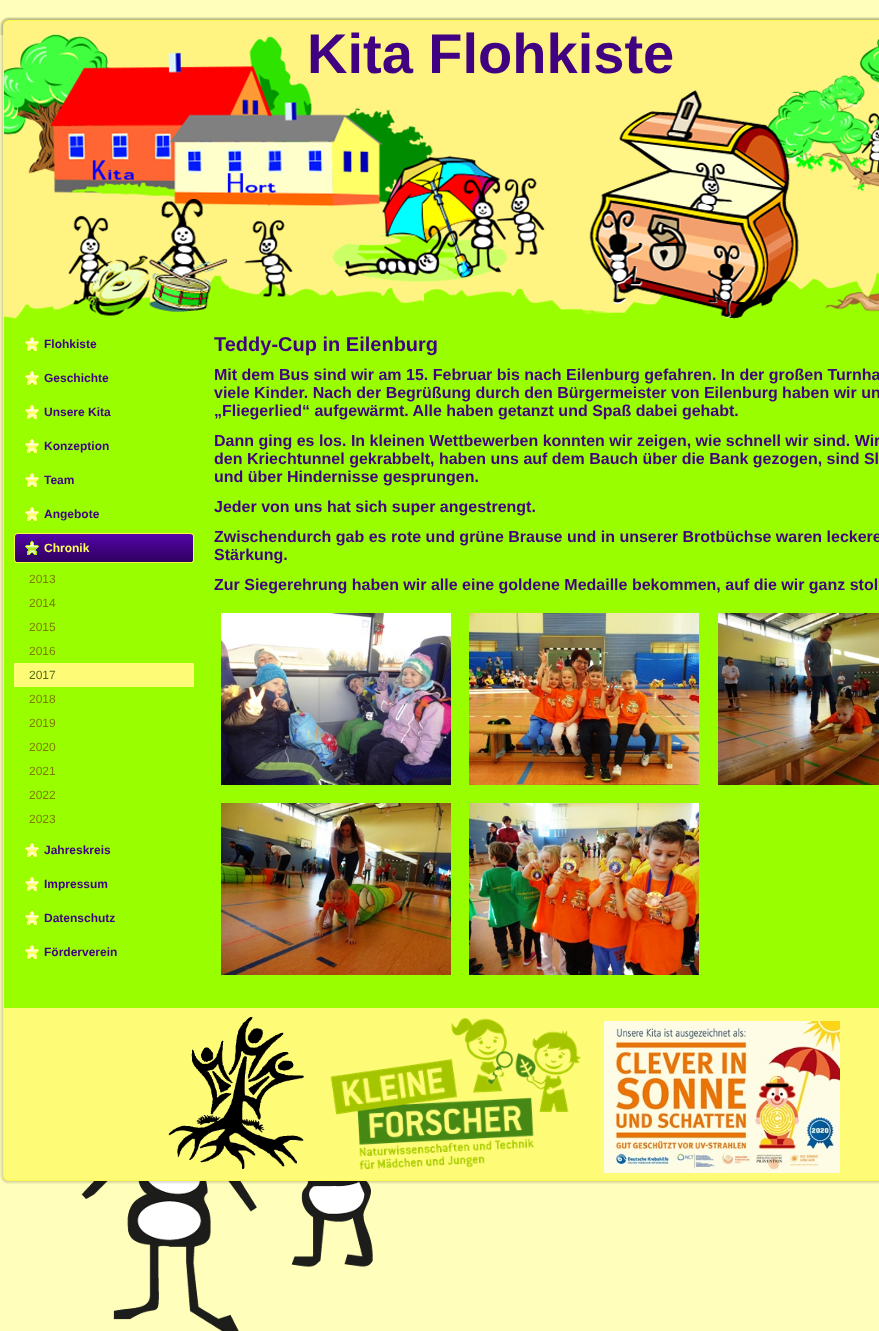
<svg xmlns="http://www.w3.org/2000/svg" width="879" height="1331">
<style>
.a{font:bold 56px Liberation Sans;fill:#400281}
.b{font:bold 12px Liberation Sans;fill:#400281}
.c{font:bold 12px Liberation Sans;fill:#ffff5b}
.d{font:12px Liberation Sans;fill:#7e7c01}
.e{font:12px Liberation Sans;fill:#526a16}
.f{font:bold 20px Liberation Sans;fill:#400281}
.g{font:bold 16px Liberation Sans;fill:#400281}
</style>
<rect width="100%" height="100%" fill="#fffebb"/>
<image href="1.png" x="80" y="1181" width="320" height="150"/>
<image href="2.png" x="0" y="17" width="879" height="1167"/>
<image href="3.png" x="0" y="17" width="879" height="18"/>
<image href="6.png" x="0" y="35" width="879" height="1131"/>
<image href="4.png" x="4" y="21" width="875" height="298"/>
<image href="5.png" x="9" y="23" width="870" height="295"/>
<image href="7.png" x="25" y="337" width="14" height="14"/>
<image href="7.png" x="25" y="371" width="14" height="14"/>
<image href="7.png" x="25" y="405" width="14" height="14"/>
<image href="7.png" x="25" y="439" width="14" height="14"/>
<image href="7.png" x="25" y="473" width="14" height="14"/>
<image href="7.png" x="25" y="507" width="14" height="14"/>
<image href="8.png" x="14" y="533" width="155" height="30"/>
<image href="9.png" x="169" y="533" width="25" height="30"/>
<path fill="#fefb77" d="M14 663h180v24H14z"/>
<image href="7.png" x="25" y="843" width="14" height="14"/>
<image href="7.png" x="25" y="877" width="14" height="14"/>
<image href="7.png" x="25" y="911" width="14" height="14"/>
<image href="7.png" x="25" y="945" width="14" height="14"/>
<image href="10.png" x="221" y="613" width="230" height="172"/>
<image href="11.png" x="469" y="613" width="230" height="172"/>
<image href="12.png" x="718" y="613" width="161" height="172"/>
<image href="13.png" x="221" y="803" width="230" height="172"/>
<image href="14.png" x="469" y="803" width="230" height="172"/>
<path fill="#fefb77" d="M4 1008h875v167H4z"/>
<image href="15.png" x="168" y="1017" width="136" height="152"/>
<image href="16.png" x="330" y="1018" width="251" height="152"/>
<image href="17.png" x="604" y="1021" width="236" height="152"/>
<image href="18.png" x="4" y="1175" width="875" height="5"/>
<text class="a" x="307" y="73">Kita Flohkiste</text>
<text class="b" x="44" y="348">Flohkiste</text>
<text class="b" x="44" y="382">Geschichte</text>
<text class="b" x="44" y="416">Unsere Kita</text>
<text class="b" x="44" y="450">Konzeption</text>
<text class="b" x="44" y="484">Team</text>
<text class="b" x="44" y="518">Angebote</text>
<text class="c" x="44" y="552">Chronik</text>
<text class="d" x="29" y="583">2013</text>
<text class="d" x="29" y="607">2014</text>
<text class="d" x="29" y="631">2015</text>
<text class="d" x="29" y="655">2016</text>
<text class="e" x="29" y="679">2017</text>
<text class="d" x="29" y="703">2018</text>
<text class="d" x="29" y="727">2019</text>
<text class="d" x="29" y="751">2020</text>
<text class="d" x="29" y="775">2021</text>
<text class="d" x="29" y="799">2022</text>
<text class="d" x="29" y="823">2023</text>
<text class="b" x="44" y="854">Jahreskreis</text>
<text class="b" x="44" y="888">Impressum</text>
<text class="b" x="44" y="922">Datenschutz</text>
<text class="b" x="44" y="956">Förderverein</text>
<text class="f" x="214" y="351">Teddy-Cup in Eilenburg</text>
<text class="g" x="214" y="380">Mit dem Bus sind wir am 15. Februar bis nach Eilenburg gefahren. In der großen Turnha</text>
<text class="g" x="214" y="398">viele Kinder. Nach der Begrüßung durch den Bürgermeister von Eilenburg haben wir un</text>
<text class="g" x="214" y="416">„Fliegerlied“ aufgewärmt. Alle haben getanzt und Spaß dabei gehabt.</text>
<text class="g" x="214" y="446">Dann ging es los. In kleinen Wettbewerben konnten wir zeigen, wie schnell wir sind. Wir</text>
<text class="g" x="214" y="464">den Kriechtunnel gekrabbelt, haben uns auf dem Bauch über die Bank gezogen, sind Sl</text>
<text class="g" x="214" y="482">und über Hindernisse gesprungen.</text>
<text class="g" x="214" y="512">Jeder von uns hat sich super angestrengt.</text>
<text class="g" x="214" y="542">Zwischendurch gab es rote und grüne Brause und in unserer Brotbüchse waren leckere</text>
<text class="g" x="214" y="560">Stärkung.</text>
<text class="g" x="214" y="590">Zur Siegerehrung haben wir alle eine goldene Medaille bekommen, auf die wir ganz stol</text>
</svg>
